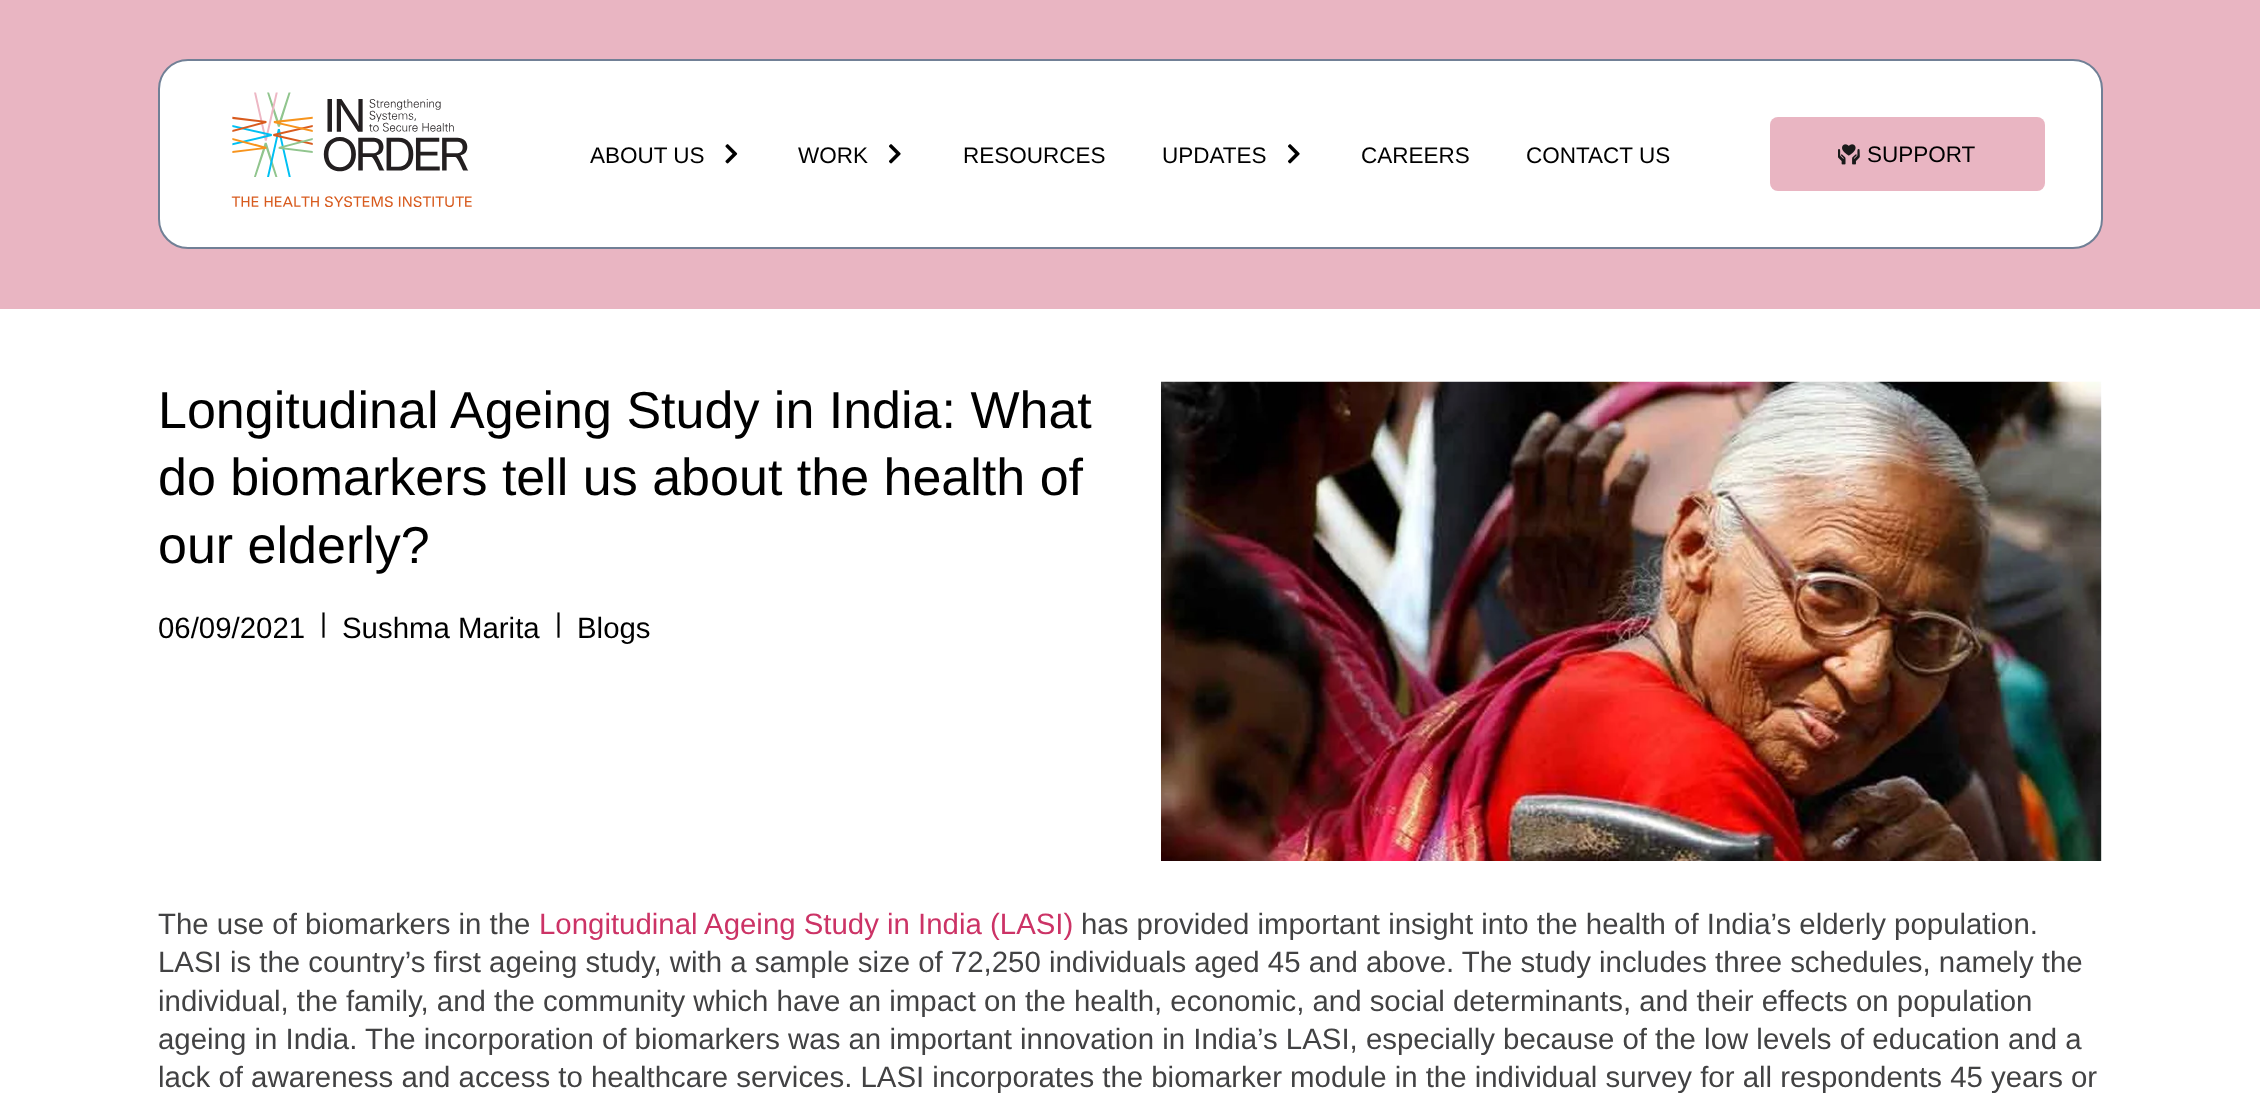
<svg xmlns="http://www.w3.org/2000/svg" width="2260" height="1096">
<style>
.a{font:22.5px Liberation Sans;fill:#000}
.b{font:52px Liberation Sans;fill:#000}
.c{font:29.4px Liberation Sans;fill:#000}
.d{font:27px Liberation Sans;fill:#000}
.e{font:29.4px Liberation Sans;fill:#424243}
.f{font:29.4px Liberation Sans;fill:#c36}
</style>
<rect width="100%" height="100%" fill="#fff"/>
<path fill="#e9b5c2" d="M0 0h2260v309H0z"/>
<rect fill="#fff" stroke="#718096" stroke-width="2" x="159" y="60" width="1943" height="188" rx="29"/>
<image href="1.png" x="231" y="92" width="241" height="115"/>
<image href="2.png" x="725" y="144" width="13" height="20"/>
<image href="3.png" x="889" y="144" width="12" height="20"/>
<image href="3.png" x="1288" y="144" width="12" height="20"/>
<rect fill="#e9b5c2" x="1770" y="117" width="275" height="74" rx="8"/>
<image href="4.png" x="1838" y="144" width="22" height="21"/>
<image href="5.png" x="1161" y="381" width="941" height="480"/>
<text class="a" x="590" y="163">ABOUT US</text>
<text class="a" x="798" y="163">WORK</text>
<text class="a" x="963" y="163">RESOURCES</text>
<text class="a" x="1162" y="163">UPDATES</text>
<text class="a" x="1361" y="163">CAREERS</text>
<text class="a" x="1526" y="163">CONTACT US</text>
<text class="a" x="1867" y="162">SUPPORT</text>
<text class="b" x="158" y="428">Longitudinal Ageing Study in India: What</text>
<text class="b" x="158" y="495">do biomarkers tell us about the health of</text>
<text class="b" x="158" y="563">our elderly?</text>
<text class="c" x="158" y="638">06/09/2021</text>
<text class="d" x="320" y="632">|</text>
<text class="c" x="342" y="638">Sushma Marita</text>
<text class="d" x="555" y="632">|</text>
<text class="c" x="577" y="638">Blogs</text>
<text class="e" x="158" y="934">The use of biomarkers in the</text>
<text class="f" x="539" y="934">Longitudinal Ageing Study in India (LASI)</text>
<text class="e" x="1081" y="934">has provided important insight into the health of India’s elderly population.</text>
<text class="e" x="158" y="972">LASI is the country’s first ageing study, with a sample size of 72,250 individuals aged 45 and above. The study includes three schedules, namely the</text>
<text class="e" x="158" y="1011">individual, the family, and the community which have an impact on the health, economic, and social determinants, and their effects on population</text>
<text class="e" x="158" y="1049">ageing in India. The incorporation of biomarkers was an important innovation in India’s LASI, especially because of the low levels of education and a</text>
<text class="e" x="158" y="1087">lack of awareness and access to healthcare services. LASI incorporates the biomarker module in the individual survey for all respondents 45 years or</text>
</svg>
